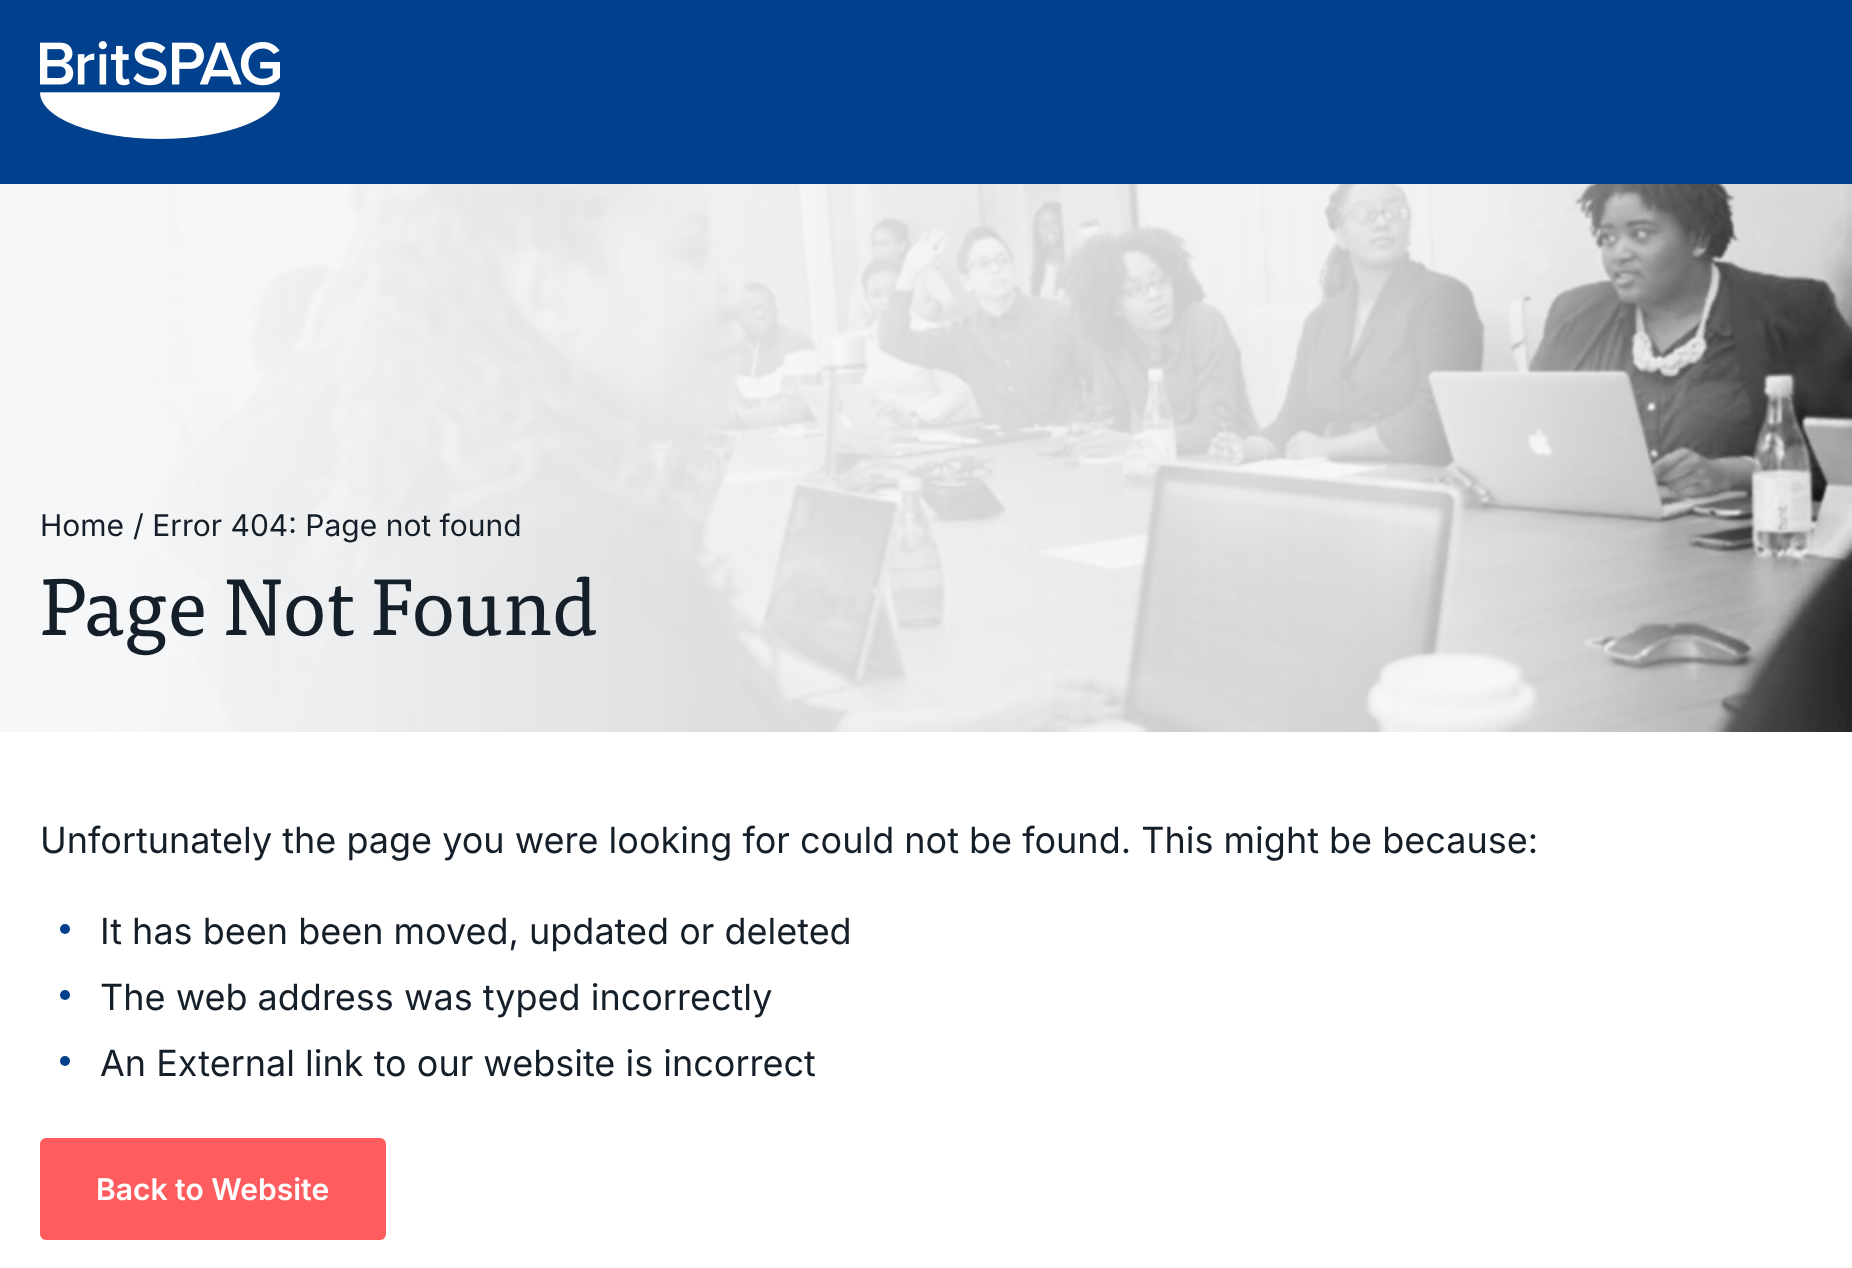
<svg xmlns="http://www.w3.org/2000/svg" width="1852" height="1268">
<style>
.a{font:30px Inter;fill:#151f29}
.b{font:80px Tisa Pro;fill:#151f29}
.c{font:36px Inter;fill:#151f29}
.d{font:600 30px Inter;fill:#fff}
</style>
<rect width="100%" height="100%" fill="#fff"/>
<path fill="#00408d" d="M0 0h1852v184H0z"/>
<image href="1.png" x="40" y="41" width="240" height="98"/>
<path fill="#f5f7f9" d="M0 184h52v548H0z"/>
<image href="2.png" x="52" y="184" width="1800" height="548"/>
<circle fill="#00408d" cx="65" cy="929" r="5"/>
<circle fill="#00408d" cx="65" cy="995" r="5"/>
<circle fill="#00408d" cx="65" cy="1061" r="5"/>
<rect fill="#ff5c60" x="40" y="1138" width="346" height="102" rx="6"/>
<text class="a" x="40" y="536">Home</text>
<text class="a" x="133" y="536">/ Error 404: Page not found</text>
<text class="b" x="40" y="635">Page Not Found</text>
<text class="c" x="40" y="853">Unfortunately the page you were looking for could not be found. This might be because:</text>
<text class="c" x="100" y="944">It has been been moved, updated or deleted</text>
<text class="c" x="100" y="1010">The web address was typed incorrectly</text>
<text class="c" x="100" y="1076">An External link to our website is incorrect</text>
<text class="d" x="96" y="1200">Back to Website</text>
</svg>
